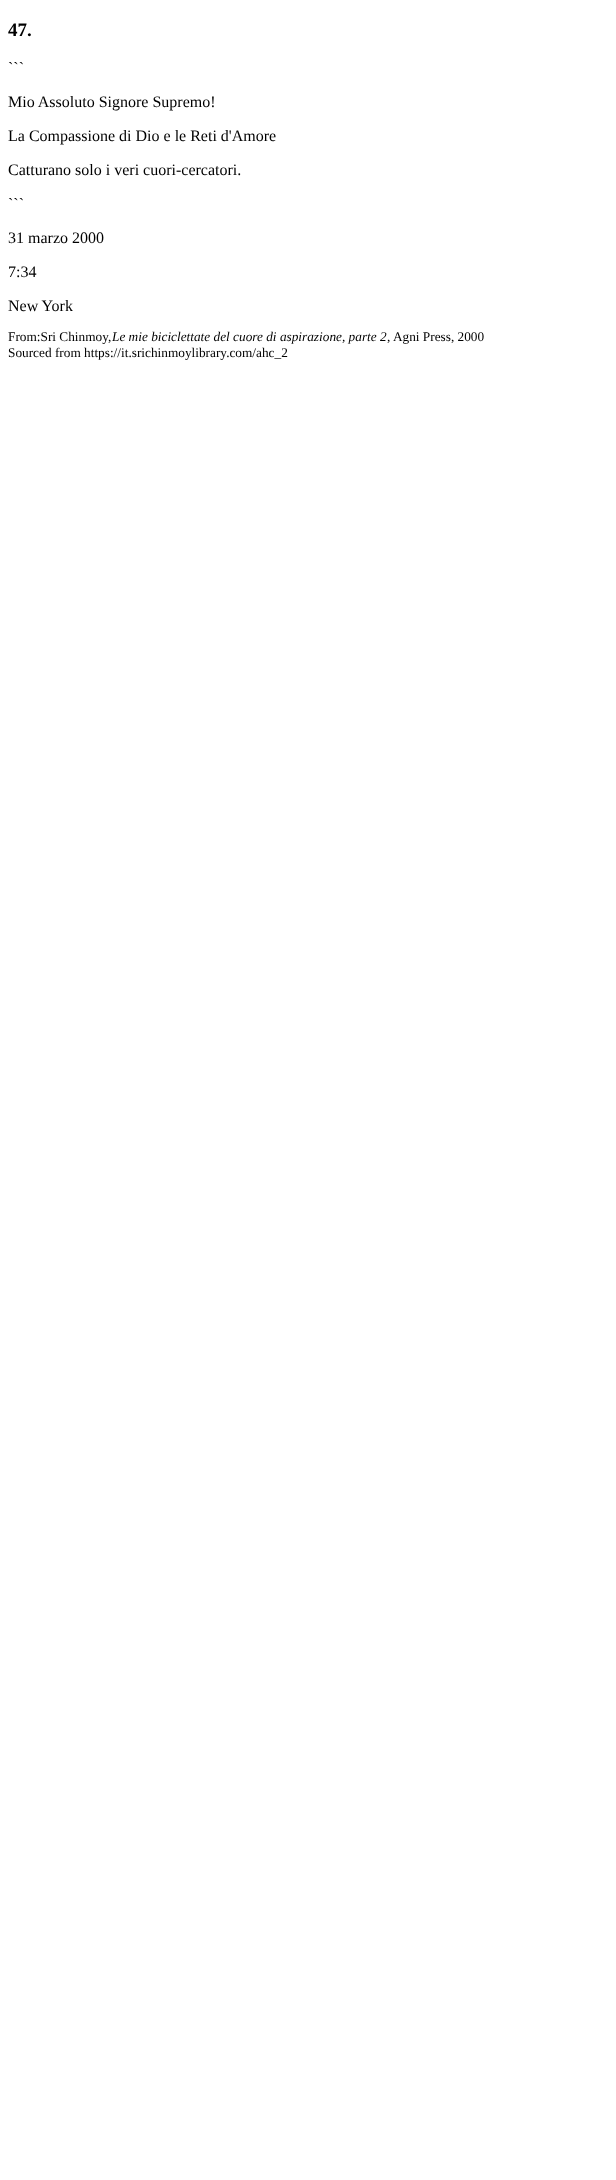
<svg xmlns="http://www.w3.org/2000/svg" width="616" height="2180">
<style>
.a{font:bold 19px Liberation Serif;fill:#000}
.b{font:16px Liberation Serif;fill:#000}
.c{font:13.3px Liberation Serif;fill:#000}
.d{font:italic 13.3px Liberation Serif;fill:#000}
</style>
<rect width="100%" height="100%" fill="#fff"/>
<text class="a" x="8" y="36">47.</text>
<text class="b" x="8" y="73">```</text>
<text class="b" x="8" y="107">Mio Assoluto Signore Supremo!</text>
<text class="b" x="8" y="141">La Compassione di Dio e le Reti d'Amore</text>
<text class="b" x="8" y="175">Catturano solo i veri cuori-cercatori.</text>
<text class="b" x="8" y="209">```</text>
<text class="b" x="8" y="243">31 marzo 2000</text>
<text class="b" x="8" y="277">7:34</text>
<text class="b" x="8" y="311">New York</text>
<text class="c" x="8" y="341">From:Sri Chinmoy,</text>
<text class="d" x="112" y="341">Le mie biciclettate del cuore di aspirazione, parte 2</text>
<text class="c" x="387" y="341">, Agni Press, 2000</text>
<text class="c" x="8" y="357">Sourced from https://it.srichinmoylibrary.com/ahc_2</text>
</svg>
